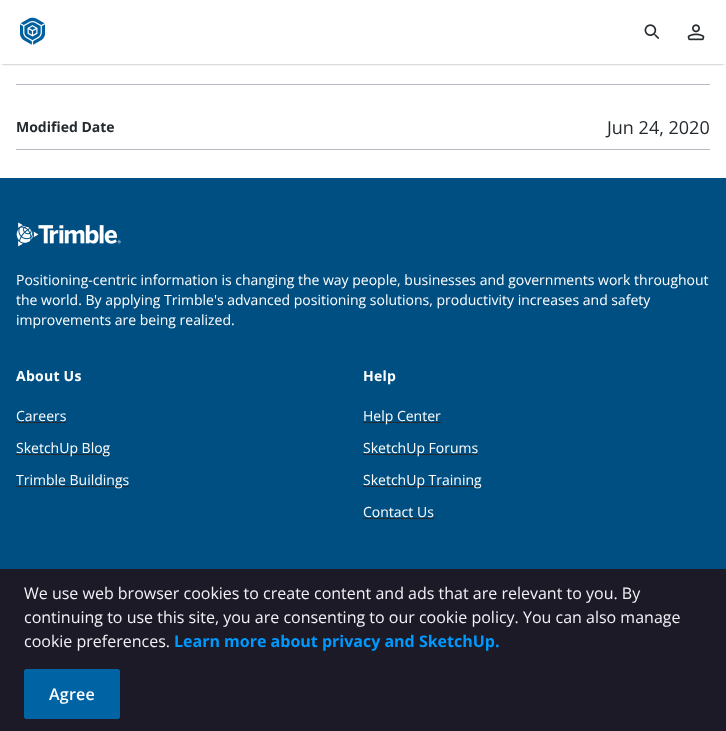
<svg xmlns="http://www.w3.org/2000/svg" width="726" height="731">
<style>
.a{font:bold 14px Open Sans;fill:#252a2e}
.b{font:18px Open Sans;fill:#252a2e}
.c{font:14px Open Sans;fill:#fff}
.d{font:bold 14px Open Sans;letter-spacing:0.25px;fill:#fff}
.e{font:16px Open Sans;fill:#f1f1f6}
.f{font:bold 16px Open Sans;fill:#0099fe}
.g{font:600 16px Open Sans;letter-spacing:0.25px;fill:#fff}
</style>
<rect width="100%" height="100%" fill="#fff"/>
<path fill="#90939f" filter="blur(1px)" d="M2 4h722v60H2z"/>
<path fill="#fff" d="M0 2h726v62H0z"/>
<image href="1.png" x="20" y="17" width="25" height="28"/>
<image href="2.png" x="644" y="24" width="16" height="15"/>
<image href="3.png" x="687" y="24" width="18" height="17"/>
<path fill="#b7b9c3" d="M16 84h694v1H16z"/>
<path fill="#b7b9c3" d="M16 149h694v1H16z"/>
<path fill="#004f83" d="M0 178h726v391H0z"/>
<image href="4.png" x="16" y="222" width="105" height="25"/>
<path fill="#252a2e" d="M16 422h50v1H16z"/>
<path fill="#252a2e" d="M16 454h94v1H16z"/>
<path fill="#252a2e" d="M16 486h113v1H16z"/>
<path fill="#252a2e" d="M363 422h78v1H363z"/>
<path fill="#252a2e" d="M363 454h115v1H363z"/>
<path fill="#252a2e" d="M363 486h119v1H363z"/>
<path fill="#252a2e" d="M363 518h71v1H363z"/>
<path fill="#1b1a26" d="M0 569h726v162H0z"/>
<rect fill="#0063a3" stroke="#0063a3" x="24.5" y="669.5" width="95" height="49" rx="1.5"/>
<text class="a" x="16" y="132">Modified Date</text>
<text class="b" x="607" y="134">Jun 24, 2020</text>
<text class="c" x="16" y="285">Positioning-centric information is changing the way people, businesses and governments work throughout</text>
<text class="c" x="16" y="305">the world. By applying Trimble's advanced positioning solutions, productivity increases and safety</text>
<text class="c" x="16" y="325">improvements are being realized.</text>
<text class="d" x="16" y="381">About Us</text>
<text class="c" x="16" y="421">Careers</text>
<text class="c" x="16" y="453">SketchUp Blog</text>
<text class="c" x="16" y="485">Trimble Buildings</text>
<text class="d" x="363" y="381">Help</text>
<text class="c" x="363" y="421">Help Center</text>
<text class="c" x="363" y="453">SketchUp Forums</text>
<text class="c" x="363" y="485">SketchUp Training</text>
<text class="c" x="363" y="517">Contact Us</text>
<text class="e" x="24" y="599">We use web browser cookies to create content and ads that are relevant to you. By</text>
<text class="e" x="24" y="623">continuing to use this site, you are consenting to our cookie policy. You can also manage</text>
<text class="e" x="24" y="647">cookie preferences.</text>
<text class="f" x="174" y="647">Learn more about privacy and SketchUp.</text>
<text class="g" x="49" y="700">Agree</text>
</svg>
